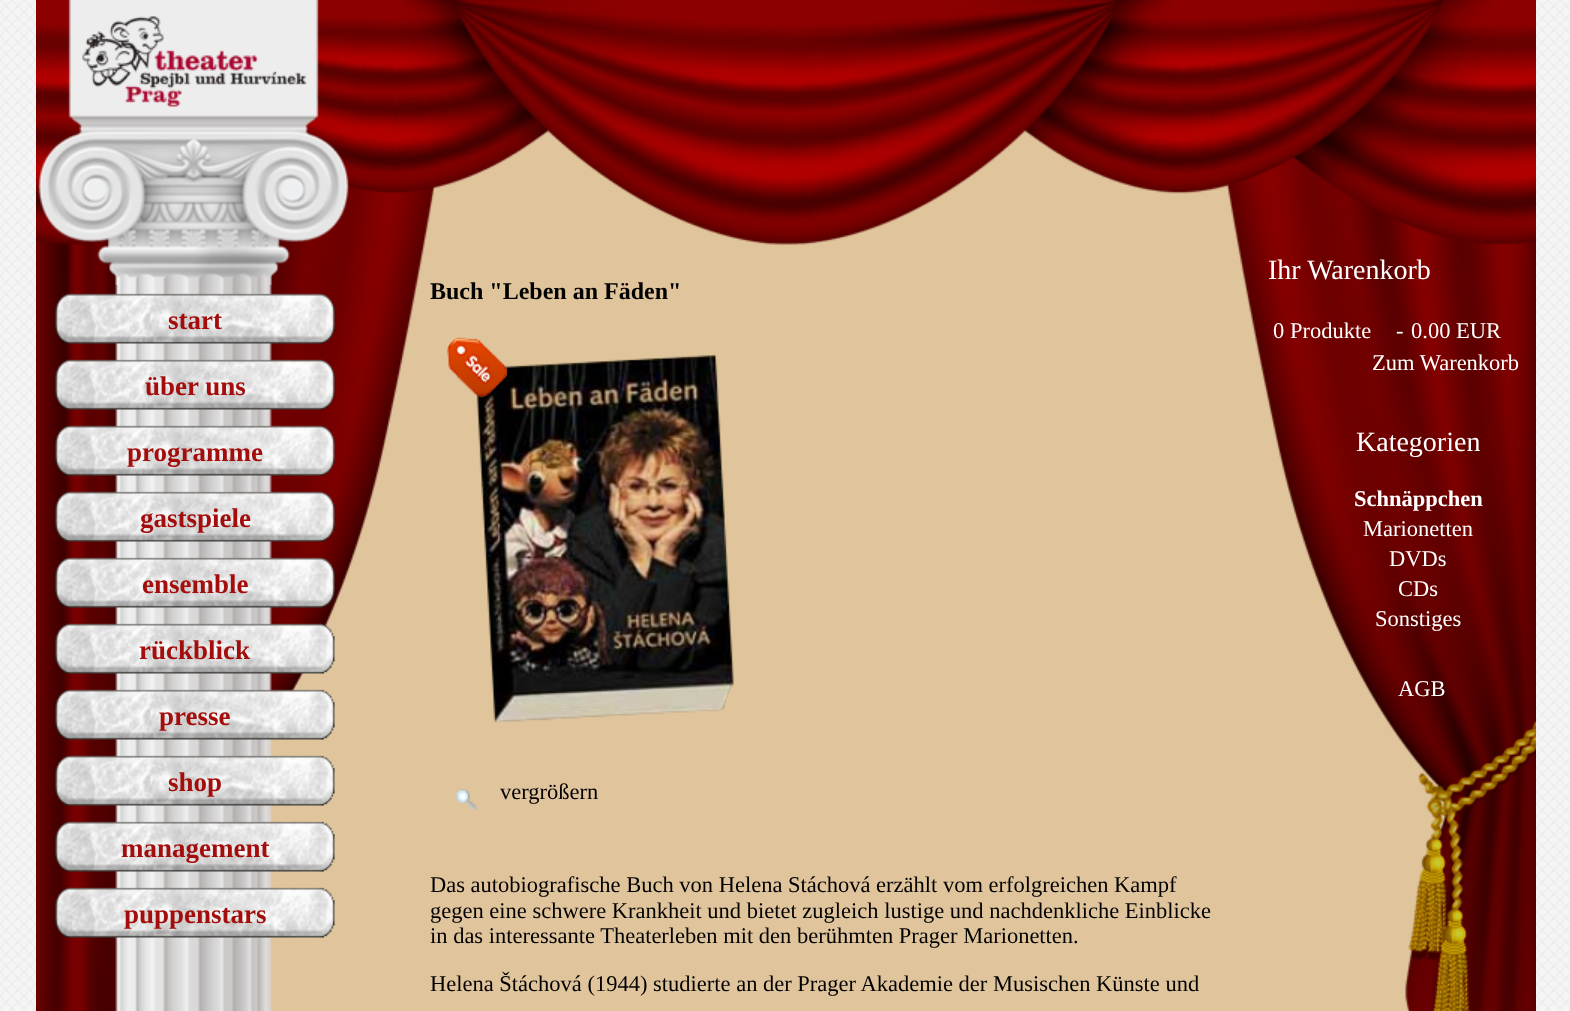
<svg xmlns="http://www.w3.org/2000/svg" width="1570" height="1011">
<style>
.a{font:bold 27px Liberation Serif;fill:#a30d0c}
.b{font:bold 24px Liberation Serif;fill:#000}
.c{font:22.5px Liberation Serif;fill:#000}
.d{font:28px Liberation Serif;fill:#fff}
.e{font:22.5px Liberation Serif;fill:#fff}
.f{font:bold 22.5px Liberation Serif;fill:#fff}
</style>
<rect width="100%" height="100%" fill="#fff"/>
<image href="1.png" x="0" y="0" width="1570" height="1011"/>
<path fill="#e0c49c" d="M269 130h1178v881H269z"/>
<image href="2.png" x="36" y="0" width="1500" height="1011"/>
<image href="3.png" x="115" y="272" width="157" height="739"/>
<image href="4.png" x="38" y="0" width="311" height="285"/>
<image href="5.png" x="82" y="16" width="225" height="91"/>
<image href="6.png" x="55" y="293" width="280" height="51"/>
<image href="7.png" x="55" y="359" width="280" height="51"/>
<image href="8.png" x="55" y="425" width="280" height="51"/>
<image href="9.png" x="55" y="491" width="280" height="51"/>
<image href="10.png" x="55" y="557" width="280" height="51"/>
<image href="11.png" x="55" y="623" width="280" height="51"/>
<image href="12.png" x="55" y="689" width="280" height="51"/>
<image href="13.png" x="55" y="755" width="280" height="51"/>
<image href="14.png" x="55" y="821" width="280" height="51"/>
<image href="15.png" x="55" y="887" width="280" height="51"/>
<image href="17.png" x="476" y="354" width="258" height="369"/>
<image href="16.png" x="447" y="337" width="60" height="61"/>
<image href="18.png" x="455" y="789" width="22" height="22"/>
<text class="a" x="168" y="329">start</text>
<text class="a" x="145" y="395">über uns</text>
<text class="a" x="127" y="461">programme</text>
<text class="a" x="140" y="527">gastspiele</text>
<text class="a" x="142" y="593">ensemble</text>
<text class="a" x="139" y="659">rückblick</text>
<text class="a" x="159" y="725">presse</text>
<text class="a" x="168" y="791">shop</text>
<text class="a" x="121" y="857">management</text>
<text class="a" x="124" y="923">puppenstars</text>
<text class="b" x="430" y="299">Buch "Leben an Fäden"</text>
<text class="c" x="500" y="799">vergrößern</text>
<text class="c" x="430" y="892">Das autobiografische Buch von Helena Stáchová erzählt vom erfolgreichen Kampf</text>
<text class="c" x="430" y="918">gegen eine schwere Krankheit und bietet zugleich lustige und nachdenkliche Einblicke</text>
<text class="c" x="430" y="943">in das interessante Theaterleben mit den berühmten Prager Marionetten.</text>
<text class="c" x="430" y="991">Helena Štáchová (1944) studierte an der Prager Akademie der Musischen Künste und</text>
<text class="d" x="1268" y="279">Ihr Warenkorb</text>
<text class="e" x="1273" y="338">0 Produkte</text>
<text class="e" x="1396" y="338">-</text>
<text class="e" x="1411" y="338">0.00 EUR</text>
<text class="e" x="1372" y="370">Zum Warenkorb</text>
<text class="d" x="1356" y="451">Kategorien</text>
<text class="f" x="1354" y="506">Schnäppchen</text>
<text class="e" x="1363" y="536">Marionetten</text>
<text class="e" x="1389" y="566">DVDs</text>
<text class="e" x="1398" y="596">CDs</text>
<text class="e" x="1375" y="626">Sonstiges</text>
<text class="e" x="1398" y="696">AGB</text>
</svg>
